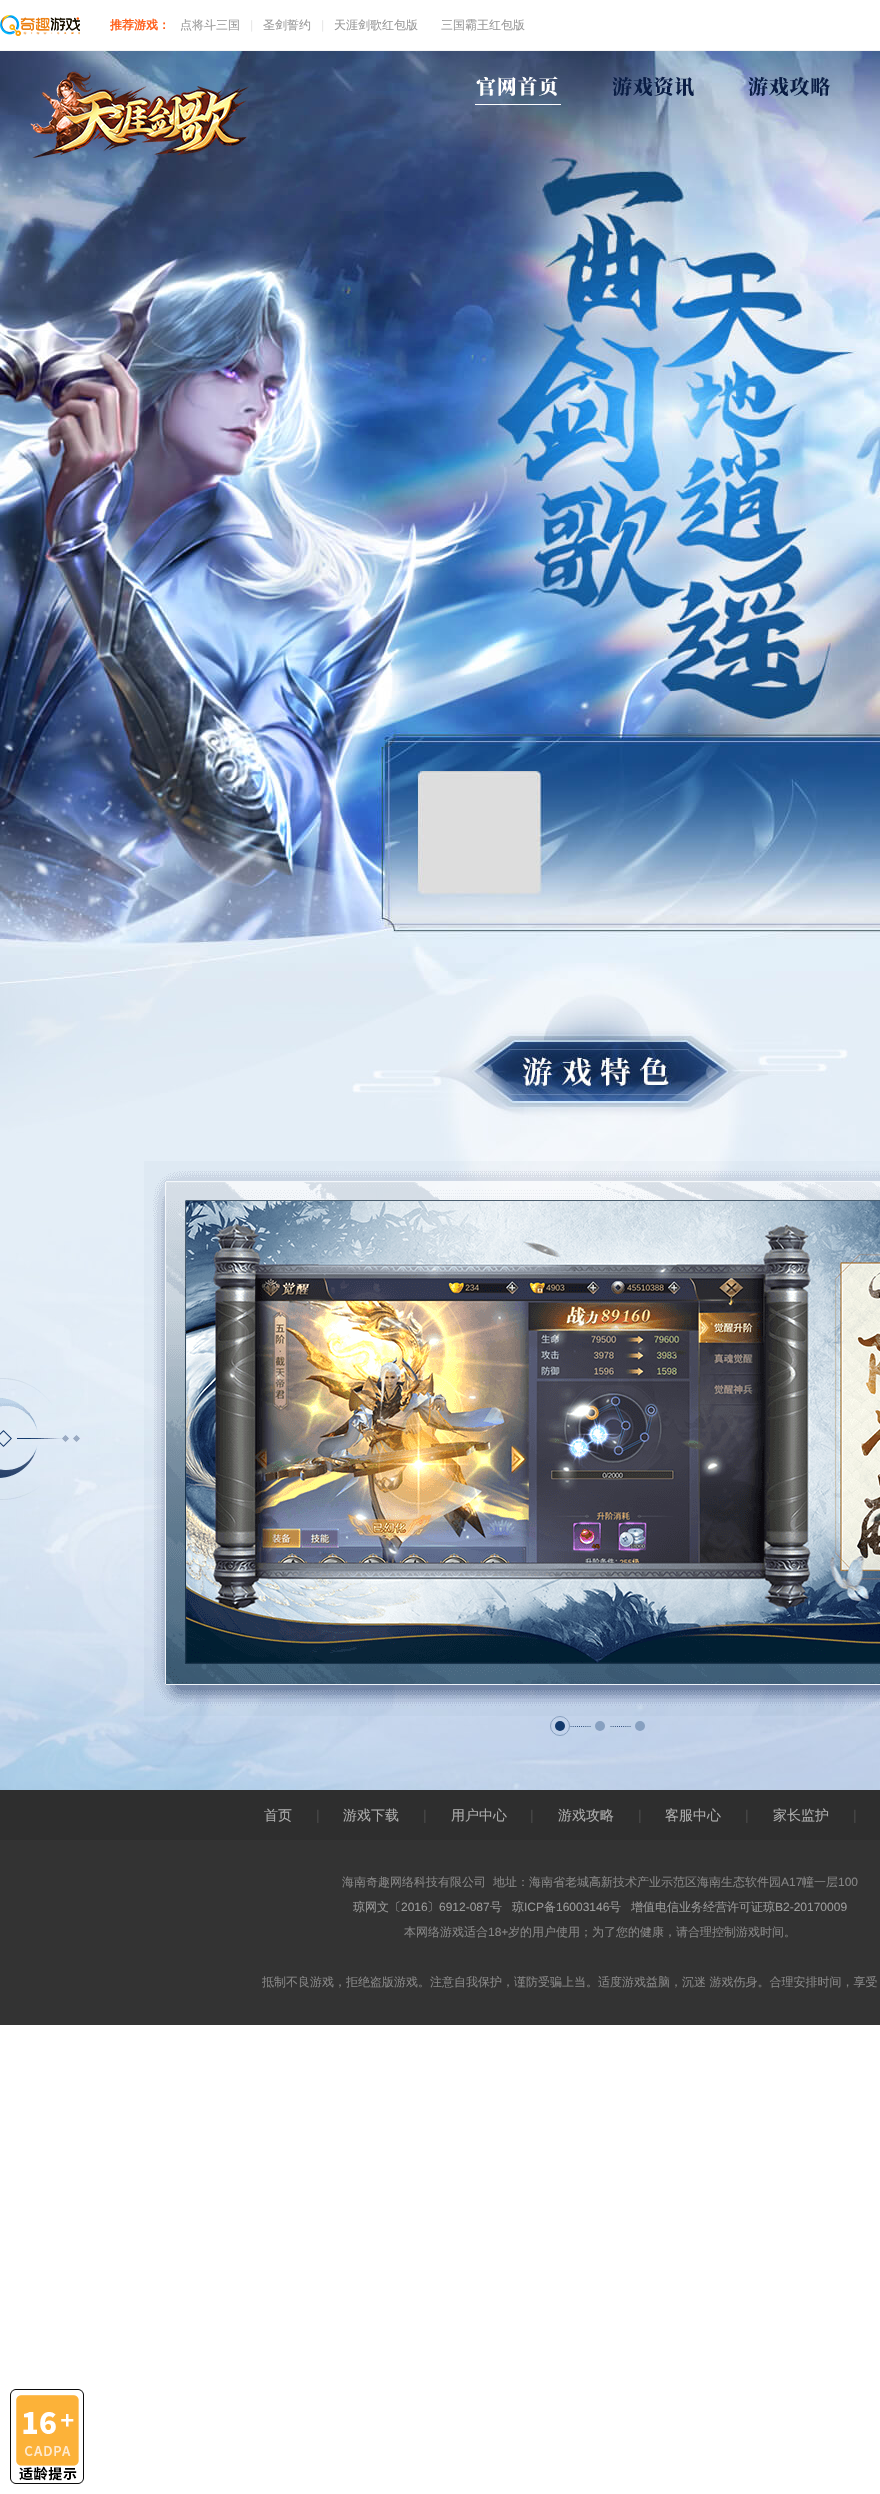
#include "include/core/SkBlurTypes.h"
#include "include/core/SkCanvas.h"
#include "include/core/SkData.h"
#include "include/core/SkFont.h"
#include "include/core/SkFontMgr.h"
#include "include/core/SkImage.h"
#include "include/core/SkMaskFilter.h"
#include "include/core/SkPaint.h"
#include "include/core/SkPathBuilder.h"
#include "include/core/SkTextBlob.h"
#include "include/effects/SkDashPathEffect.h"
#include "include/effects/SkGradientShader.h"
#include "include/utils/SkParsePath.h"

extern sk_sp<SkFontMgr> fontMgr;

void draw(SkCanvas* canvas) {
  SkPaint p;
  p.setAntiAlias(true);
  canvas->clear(SK_ColorWHITE);
  p.setColor(SkColorSetRGB(245, 245, 245));
  canvas->drawRect(SkRect::MakeLTRB(0, 50, 880, 51), p);
  canvas->drawImageRect(SkImages::DeferredFromEncodedData(SkData::MakeFromFileName("images/1.png")), SkRect::MakeLTRB(0, 15, 80, 36), SkSamplingOptions());
  canvas->drawImageRect(SkImages::DeferredFromEncodedData(SkData::MakeFromFileName("images/2.png")), SkRect::MakeLTRB(0, 51, 880, 981), SkSamplingOptions());
  canvas->drawImageRect(SkImages::DeferredFromEncodedData(SkData::MakeFromFileName("images/3.png")), SkRect::MakeLTRB(0, 981, 880, 1790), SkSamplingOptions());
  canvas->drawImageRect(SkImages::DeferredFromEncodedData(SkData::MakeFromFileName("images/4.png")), SkRect::MakeLTRB(0, 1378, 80, 1500), SkSamplingOptions());
  canvas->drawImageRect(SkImages::DeferredFromEncodedData(SkData::MakeFromFileName("images/5.png")), SkRect::MakeLTRB(144, 1161, 880, 1716), SkSamplingOptions());
  p.setColor(SkColorSetRGB(18, 57, 108));
  canvas->drawCircle(560, 1726, 5, p);
  p.setStyle(SkPaint::kStroke_Style);
  p.setStrokeWidth(1);
  p.setColor(SkColorSetRGB(135, 159, 191));
  canvas->drawCircle(560, 1726, 9.5f, p);
  p.setStyle(SkPaint::kFill_Style);
  p.setColor(SkColorSetRGB(135, 160, 192));
  canvas->drawCircle(600, 1726, 5, p);
  canvas->drawImageRect(SkImages::DeferredFromEncodedData(SkData::MakeFromFileName("images/6.png")), SkRect::MakeLTRB(570, 1726, 591, 1727), SkSamplingOptions());
  canvas->drawCircle(640, 1726, 5, p);
  canvas->drawImageRect(SkImages::DeferredFromEncodedData(SkData::MakeFromFileName("images/7.png")), SkRect::MakeLTRB(610, 1726, 631, 1727), SkSamplingOptions());
  canvas->drawImageRect(SkImages::DeferredFromEncodedData(SkData::MakeFromFileName("images/8.png")), SkRect::MakeLTRB(30, 71, 250, 158), SkSamplingOptions());
  canvas->drawImageRect(SkImages::DeferredFromEncodedData(SkData::MakeFromFileName("images/9.png")), SkRect::MakeLTRB(476, 76, 558, 96), SkSamplingOptions());
  p.setColor(SK_ColorWHITE);
  canvas->drawRect(SkRect::MakeLTRB(475, 104, 561, 105), p);
  canvas->drawImageRect(SkImages::DeferredFromEncodedData(SkData::MakeFromFileName("images/10.png")), SkRect::MakeLTRB(612, 76, 694, 96), SkSamplingOptions());
  canvas->drawImageRect(SkImages::DeferredFromEncodedData(SkData::MakeFromFileName("images/11.png")), SkRect::MakeLTRB(748, 76, 830, 96), SkSamplingOptions());
  p.setColor(SkColorSetRGB(51, 51, 51));
  canvas->drawRect(SkRect::MakeLTRB(0, 1840, 880, 2025), p);
  p.setColor(SkColorSetRGB(46, 46, 46));
  canvas->drawRect(SkRect::MakeLTRB(0, 1790, 880, 1840), p);
  canvas->drawImageRect(SkImages::DeferredFromEncodedData(SkData::MakeFromFileName("images/12.png")), SkRect::MakeLTRB(10, 2389, 84, 2484), SkSamplingOptions());
  SkFont font1(fontMgr->matchFamilyStyle("WenQuanYi Zen Hei", SkFontStyle::Bold()), 12);
  font1.setSubpixel(true);
  p.setColor(SkColorSetRGB(255, 96, 27));
  canvas->drawString("推荐游戏：", 110, 29, font1, p);
  SkFont font2(fontMgr->matchFamilyStyle("WenQuanYi Zen Hei", SkFontStyle(500, SkFontStyle::kNormal_Width, SkFontStyle::kUpright_Slant)), 12);
  font2.setSubpixel(true);
  p.setColor(SkColorSetRGB(153, 153, 153));
  canvas->drawString("点将斗三国", 180, 29, font2, p);
  SkFont font3(fontMgr->matchFamilyStyle("Liberation Sans", SkFontStyle::Normal()), 12);
  font3.setSubpixel(true);
  p.setColor(SkColorSetRGB(232, 232, 232));
  canvas->drawString("|", 250, 29, font3, p);
  p.setColor(SkColorSetRGB(153, 153, 153));
  canvas->drawString("圣剑誓约", 263, 29, font2, p);
  p.setColor(SkColorSetRGB(232, 232, 232));
  canvas->drawString("|", 321, 29, font3, p);
  p.setColor(SkColorSetRGB(153, 153, 153));
  canvas->drawString("天涯剑歌红包版", 334, 29, font2, p);
  canvas->drawString("三国霸王红包版", 441, 29, font2, p);
  SkFont font4(fontMgr->matchFamilyStyle("WenQuanYi Zen Hei", SkFontStyle(500, SkFontStyle::kNormal_Width, SkFontStyle::kUpright_Slant)), 14);
  font4.setSubpixel(true);
  p.setColor(SkColorSetRGB(172, 172, 172));
  canvas->drawString("首页", 264, 1820, font4, p);
  SkFont font5(fontMgr->matchFamilyStyle("Liberation Sans", SkFontStyle::Normal()), 14);
  font5.setSubpixel(true);
  p.setColor(SkColorSetRGB(72, 72, 72));
  canvas->drawString("|", 316, 1820, font5, p);
  p.setColor(SkColorSetRGB(172, 172, 172));
  canvas->drawString("游戏下载", 343, 1820, font4, p);
  p.setColor(SkColorSetRGB(72, 72, 72));
  canvas->drawString("|", 423, 1820, font5, p);
  p.setColor(SkColorSetRGB(172, 172, 172));
  canvas->drawString("用户中心", 451, 1820, font4, p);
  p.setColor(SkColorSetRGB(72, 72, 72));
  canvas->drawString("|", 530, 1820, font5, p);
  p.setColor(SkColorSetRGB(172, 172, 172));
  canvas->drawString("游戏攻略", 558, 1820, font4, p);
  p.setColor(SkColorSetRGB(72, 72, 72));
  canvas->drawString("|", 638, 1820, font5, p);
  p.setColor(SkColorSetRGB(172, 172, 172));
  canvas->drawString("客服中心", 665, 1820, font4, p);
  p.setColor(SkColorSetRGB(72, 72, 72));
  canvas->drawString("|", 745, 1820, font5, p);
  p.setColor(SkColorSetRGB(172, 172, 172));
  canvas->drawString("家长监护", 773, 1820, font4, p);
  p.setColor(SkColorSetRGB(72, 72, 72));
  canvas->drawString("|", 853, 1820, font5, p);
  p.setColor(SkColorSetRGB(133, 133, 133));
  canvas->drawString("海南奇趣网络科技有限公司", 342, 1886, font2, p);
  canvas->drawString("地址：海南省老城高新技术产业示范区海南生态软件园", 493, 1886, font2, p);
  canvas->drawString("A17", 781, 1886, font3, p);
  canvas->drawString("幢一层", 802, 1886, font2, p);
  canvas->drawString("100", 838, 1886, font3, p);
  p.setColor(SkColorSetRGB(153, 153, 153));
  canvas->drawString("琼网文〔", 353, 1911, font2, p);
  canvas->drawString("2016", 401, 1911, font3, p);
  canvas->drawString("〕", 427, 1911, font2, p);
  canvas->drawString("6912-087", 439, 1911, font3, p);
  canvas->drawString("号", 490, 1911, font2, p);
  canvas->drawString("琼", 512, 1911, font2, p);
  canvas->drawString("ICP", 524, 1911, font3, p);
  canvas->drawString("备", 544, 1911, font2, p);
  canvas->drawString("16003146", 556, 1911, font3, p);
  canvas->drawString("号", 609, 1911, font2, p);
  canvas->drawString("增值电信业务经营许可证琼", 631, 1911, font2, p);
  canvas->drawString("B2-20170009", 775, 1911, font3, p);
  p.setColor(SkColorSetRGB(133, 133, 133));
  canvas->drawString("本网络游戏适合", 404, 1936, font2, p);
  canvas->drawString("18+", 488, 1936, font3, p);
  canvas->drawString("岁的用户使用；为了您的健康，请合理控制游戏时间。", 508, 1936, font2, p);
  canvas->drawString("抵制不良游戏，拒绝盗版游戏。注意自我保护，谨防受骗上当。适度游戏益脑，沉迷 游戏伤身。合理安排时间，享受", 262, 1986, font2, p);
}
